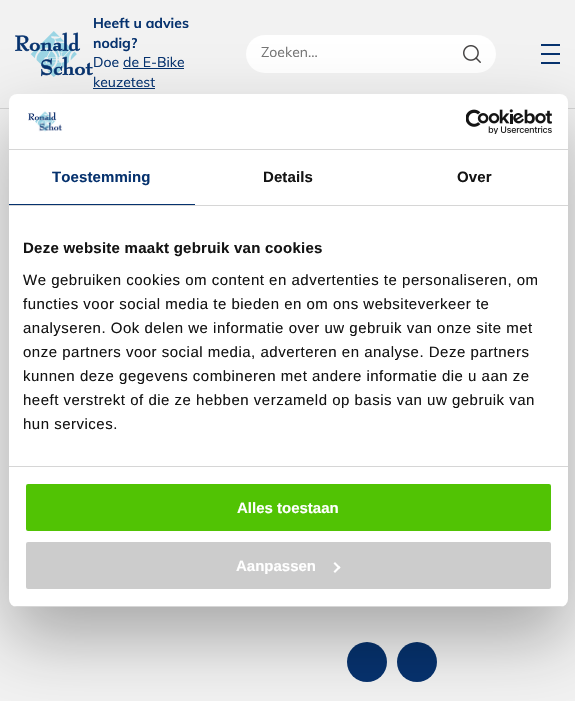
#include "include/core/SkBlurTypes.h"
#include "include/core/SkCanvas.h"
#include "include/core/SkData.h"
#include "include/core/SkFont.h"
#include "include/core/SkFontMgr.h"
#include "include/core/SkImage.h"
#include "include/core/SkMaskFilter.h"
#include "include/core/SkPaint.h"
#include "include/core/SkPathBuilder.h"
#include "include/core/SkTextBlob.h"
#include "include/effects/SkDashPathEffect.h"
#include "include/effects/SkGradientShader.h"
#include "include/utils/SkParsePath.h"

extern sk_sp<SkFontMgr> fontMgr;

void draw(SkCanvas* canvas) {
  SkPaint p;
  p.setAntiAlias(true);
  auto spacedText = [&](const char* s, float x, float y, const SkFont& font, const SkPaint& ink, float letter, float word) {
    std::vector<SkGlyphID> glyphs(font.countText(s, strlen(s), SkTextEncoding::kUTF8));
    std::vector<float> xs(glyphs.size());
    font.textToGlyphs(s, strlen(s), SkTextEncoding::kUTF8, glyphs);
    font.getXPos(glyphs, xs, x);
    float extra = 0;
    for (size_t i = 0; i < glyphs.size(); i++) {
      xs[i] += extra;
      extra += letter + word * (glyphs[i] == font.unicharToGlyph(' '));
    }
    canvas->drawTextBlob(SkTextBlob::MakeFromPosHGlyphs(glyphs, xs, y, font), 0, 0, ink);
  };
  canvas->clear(SkColorSetRGB(242, 242, 242));
  p.setColor(SkColorSetRGB(212, 212, 212));
  canvas->drawRect(SkRect::MakeLTRB(0, 108, 575, 109), p);
  canvas->drawImageRect(SkImages::DeferredFromEncodedData(SkData::MakeFromFileName("images/1.png")), SkRect::MakeLTRB(15, 31, 93, 77), SkSamplingOptions());
  p.setColor(SkColorSetRGB(5, 50, 110));
  canvas->drawRect(SkRect::MakeLTRB(123, 68, 184, 69), p);
  canvas->drawRect(SkRect::MakeLTRB(93, 88, 155, 89), p);
  p.setColor(SK_ColorWHITE);
  canvas->drawRoundRect(SkRect::MakeLTRB(246, 35, 496, 73), 19, 19, p);
  canvas->drawImageRect(SkImages::DeferredFromEncodedData(SkData::MakeFromFileName("images/2.png")), SkRect::MakeLTRB(463, 45, 481, 63), SkSamplingOptions());
  p.setColor(SkColorSetRGB(6, 50, 110));
  canvas->drawRect(SkRect::MakeLTRB(541, 44, 560, 46), p);
  canvas->drawRect(SkRect::MakeLTRB(541, 53, 560, 55), p);
  canvas->drawRect(SkRect::MakeLTRB(541, 62, 560, 64), p);
  canvas->drawCircle(367, 662, 20, p);
  canvas->drawCircle(417, 662, 20, p);
  p.setColor(SkColorSetARGB(77, 0, 0, 0));
  p.setMaskFilter(SkMaskFilter::MakeBlur(kNormal_SkBlurStyle, 34));
  canvas->drawRoundRect(SkRect::MakeLTRB(9, 126, 568, 639), 8, 8, p);
  p.setMaskFilter(nullptr);
  p.setColor(SK_ColorWHITE);
  canvas->drawRoundRect(SkRect::MakeLTRB(9, 94, 568, 607), 8, 8, p);
  p.setColor(SkColorSetRGB(214, 214, 214));
  canvas->drawRect(SkRect::MakeLTRB(9, 149, 568, 150), p);
  canvas->drawImageRect(SkImages::DeferredFromEncodedData(SkData::MakeFromFileName("images/3.png")), SkRect::MakeLTRB(28, 111, 63, 132), SkSamplingOptions());
  canvas->drawImageRect(SkImages::DeferredFromEncodedData(SkData::MakeFromFileName("images/4.png")), SkRect::MakeLTRB(466, 109, 552, 134), SkSamplingOptions());
  canvas->drawRect(SkRect::MakeLTRB(9, 205, 568, 206), p);
  p.setColor(SkColorSetRGB(6, 50, 110));
  canvas->drawRect(SkRect::MakeLTRB(9, 204, 195, 205), p);
  p.setColor(SkColorSetRGB(214, 214, 214));
  canvas->drawRect(SkRect::MakeLTRB(9, 466, 568, 467), p);
  canvas->save();
  canvas->clipPath(SkPathBuilder().moveTo(17, 94).lineTo(560, 94).cubicTo(564.5f, 94, 568, 97.5f, 568, 102).lineTo(568, 599).cubicTo(568, 603.5f, 564.5f, 607, 560, 607).lineTo(17, 607).cubicTo(12.5f, 607, 9, 603.5f, 9, 599).lineTo(9, 102).cubicTo(9, 97.5f, 12.5f, 94, 17, 94).close().detach(), true);
  canvas->drawRect(SkRect::MakeLTRB(9, 606, 568, 607), p);
  canvas->restore();
  p.setColor(SkColorSetRGB(81, 195, 4));
  canvas->drawRoundRect(SkRect::MakeLTRB(25, 483, 552, 532), 3, 3, p);
  p.setStyle(SkPaint::kStroke_Style);
  p.setStrokeWidth(2);
  p.setColor(SK_ColorWHITE);
  canvas->drawRoundRect(SkRect::MakeLTRB(25, 483, 552, 532), 3, 3, p);
  p.setStyle(SkPaint::kFill_Style);
  p.setColor(SkColorSetRGB(204, 204, 204));
  canvas->drawRoundRect(SkRect::MakeLTRB(25, 541, 552, 590), 3, 3, p);
  p.setStyle(SkPaint::kStroke_Style);
  p.setColor(SK_ColorWHITE);
  canvas->drawRoundRect(SkRect::MakeLTRB(25, 541, 552, 590), 3, 3, p);
  p.setStyle(SkPaint::kFill_Style);
  canvas->drawPath(SkPathBuilder().moveTo(335, 562).lineTo(340.5f, 567.5f).lineTo(339, 569).lineTo(333.5f, 563.5f).close().detach(), p);
  canvas->drawPath(SkPathBuilder().moveTo(339, 566).lineTo(340.5f, 567.5f).lineTo(335, 573).lineTo(333.5f, 571.5f).close().detach(), p);
  SkFont font1(fontMgr->matchFamilyStyle("Muli", SkFontStyle::Bold()), 14);
  font1.setSubpixel(true);
  p.setColor(SkColorSetRGB(6, 50, 110));
  canvas->drawString("Heeft u advies", 93, 28, font1, p);
  canvas->drawString("nodig?", 93, 48, font1, p);
  SkFont font2(fontMgr->matchFamilyStyle("Muli", SkFontStyle::Normal()), 14);
  font2.setSubpixel(true);
  canvas->drawString("Doe", 93, 67, font2, p);
  canvas->drawString("de E-Bike", 123, 67, font2, p);
  canvas->drawString("keuzetest", 93, 87, font2, p);
  p.setColor(SkColorSetRGB(117, 117, 117));
  canvas->drawString("Zoeken...", 261, 57, font2, p);
  SkFont font3(fontMgr->matchFamilyStyle("Liberation Sans", SkFontStyle::Bold()), 15);
  font3.setSubpixel(true);
  p.setColor(SkColorSetRGB(6, 50, 110));
  spacedText("Toestemming", 52, 182, font3, p, 0.1f, 0);
  p.setColor(SkColorSetRGB(20, 20, 20));
  spacedText("Details", 263, 182, font3, p, 0.1f, 0);
  spacedText("Over", 457, 182, font3, p, 0.1f, 0);
  spacedText("Deze website maakt gebruik van cookies", 23, 253, font3, p, 0.25f, 0);
  SkFont font4(fontMgr->matchFamilyStyle("Liberation Sans", SkFontStyle::Normal()), 15);
  font4.setSubpixel(true);
  spacedText("We gebruiken cookies om content en advertenties te personaliseren, om", 23, 285, font4, p, 0.5f, 0);
  spacedText("functies voor social media te bieden en om ons websiteverkeer te", 23, 309, font4, p, 0.5f, 0);
  spacedText("analyseren. Ook delen we informatie over uw gebruik van onze site met", 23, 333, font4, p, 0.5f, 0);
  spacedText("onze partners voor social media, adverteren en analyse. Deze partners", 23, 357, font4, p, 0.5f, 0);
  spacedText("kunnen deze gegevens combineren met andere informatie die u aan ze", 23, 381, font4, p, 0.5f, 0);
  spacedText("heeft verstrekt of die ze hebben verzameld op basis van uw gebruik van", 23, 405, font4, p, 0.5f, 0);
  spacedText("hun services.", 23, 429, font4, p, 0.5f, 0);
  p.setColor(SK_ColorWHITE);
  canvas->drawString("Alles toestaan", 237, 513, font3, p);
  canvas->drawString("Aanpassen", 236, 571, font3, p);
}
